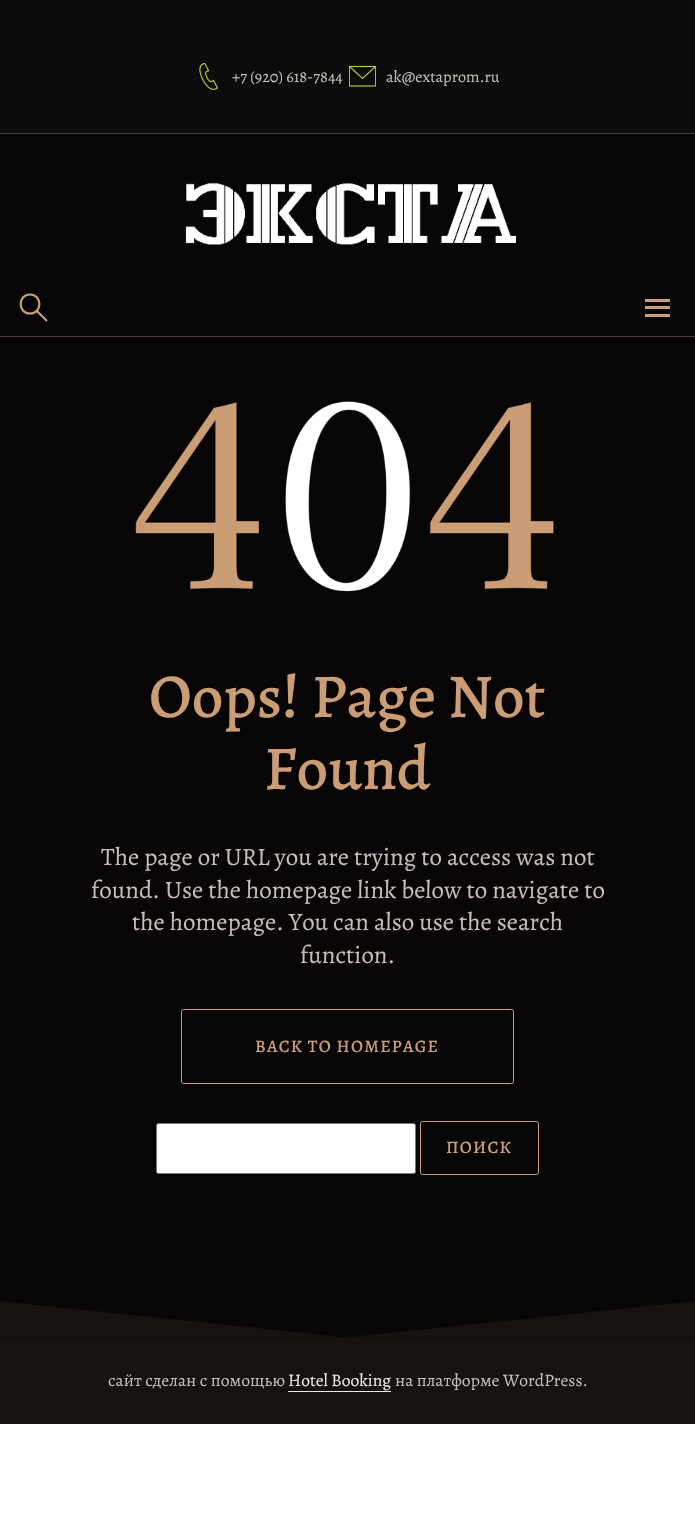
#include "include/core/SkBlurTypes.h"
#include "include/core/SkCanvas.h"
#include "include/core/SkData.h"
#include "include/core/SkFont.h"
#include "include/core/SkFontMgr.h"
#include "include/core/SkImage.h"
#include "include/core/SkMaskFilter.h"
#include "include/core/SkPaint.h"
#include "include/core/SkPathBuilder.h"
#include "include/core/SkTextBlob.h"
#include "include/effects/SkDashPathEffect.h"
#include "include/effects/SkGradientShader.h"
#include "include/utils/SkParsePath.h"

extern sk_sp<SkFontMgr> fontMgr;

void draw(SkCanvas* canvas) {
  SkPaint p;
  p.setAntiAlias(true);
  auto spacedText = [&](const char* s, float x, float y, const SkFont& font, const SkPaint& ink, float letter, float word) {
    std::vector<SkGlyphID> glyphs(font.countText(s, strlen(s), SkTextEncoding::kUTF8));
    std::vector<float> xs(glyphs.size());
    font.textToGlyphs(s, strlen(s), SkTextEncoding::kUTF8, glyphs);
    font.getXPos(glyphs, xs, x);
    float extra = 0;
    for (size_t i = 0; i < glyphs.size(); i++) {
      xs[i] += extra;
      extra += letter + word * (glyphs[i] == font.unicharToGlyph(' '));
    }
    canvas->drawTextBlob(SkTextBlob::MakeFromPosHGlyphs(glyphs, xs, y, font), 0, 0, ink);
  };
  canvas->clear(SK_ColorWHITE);
  p.setColor(SkColorSetRGB(12, 12, 12));
  canvas->drawRect(SkRect::MakeLTRB(0, 0, 695, 133), p);
  p.setColor(SkColorSetRGB(67, 62, 55));
  canvas->drawRect(SkRect::MakeLTRB(0, 133, 695, 134), p);
  canvas->drawImageRect(SkImages::DeferredFromEncodedData(SkData::MakeFromFileName("images/1.png")), SkRect::MakeLTRB(199, 63, 219, 90), SkSamplingOptions());
  canvas->drawImageRect(SkImages::DeferredFromEncodedData(SkData::MakeFromFileName("images/2.png")), SkRect::MakeLTRB(349, 65, 376, 87), SkSamplingOptions());
  p.setColor(SkColorSetRGB(7, 5, 6));
  canvas->drawRect(SkRect::MakeLTRB(0, 134, 695, 1338), p);
  p.setColor(SkColorSetRGB(67, 62, 55));
  canvas->drawRect(SkRect::MakeLTRB(0, 336, 695, 337), p);
  canvas->drawImageRect(SkImages::DeferredFromEncodedData(SkData::MakeFromFileName("images/3.png")), SkRect::MakeLTRB(185, 182, 516, 245), SkSamplingOptions());
  p.setStyle(SkPaint::kStroke_Style);
  p.setStrokeWidth(2.2f);
  p.setColor(SkColorSetRGB(202, 157, 117));
  canvas->drawPath(SkPathBuilder().moveTo(30, 313.5f).cubicTo(42.5f, 313.5f, 42.5f, 294.5f, 30, 294.5f).cubicTo(17.5f, 294.5f, 17.5f, 313.5f, 30, 313.5f).close().moveTo(47, 321).lineTo(36.5f, 310.5f).detach(), p);
  p.setStyle(SkPaint::kFill_Style);
  canvas->drawRect(SkRect::MakeLTRB(645, 299, 670, 302), p);
  canvas->drawRect(SkRect::MakeLTRB(645, 306, 670, 309), p);
  canvas->drawRect(SkRect::MakeLTRB(645, 314, 670, 317), p);
  canvas->drawImageRect(SkImages::DeferredFromEncodedData(SkData::MakeFromFileName("images/4.png")), SkRect::MakeLTRB(135, 401, 554, 592), SkSamplingOptions());
  p.setStyle(SkPaint::kStroke_Style);
  p.setStrokeWidth(1);
  canvas->drawRoundRect(SkRect::MakeLTRB(181.5f, 1009.5f, 513.5f, 1083.5f), 2, 2, p);
  p.setStyle(SkPaint::kFill_Style);
  p.setColor(SK_ColorWHITE);
  canvas->drawRoundRect(SkRect::MakeLTRB(156.5f, 1123.5f, 415.5f, 1173.5f), 2, 2, p);
  p.setStyle(SkPaint::kStroke_Style);
  p.setColor(SkColorSetRGB(118, 118, 118));
  canvas->drawRoundRect(SkRect::MakeLTRB(156.5f, 1123.5f, 415.5f, 1173.5f), 2, 2, p);
  p.setColor(SkColorSetRGB(202, 157, 117));
  canvas->drawRoundRect(SkRect::MakeLTRB(420.5f, 1121.5f, 538.5f, 1174.5f), 2, 2, p);
  p.setStyle(SkPaint::kFill_Style);
  p.setColor(SkColorSetRGB(21, 18, 15));
  canvas->drawRect(SkRect::MakeLTRB(0, 1338, 695, 1424), p);
  canvas->drawImageRect(SkImages::DeferredFromEncodedData(SkData::MakeFromFileName("images/5.png")), SkRect::MakeLTRB(0, 1301, 695, 1338), SkSamplingOptions());
  p.setColor(SkColorSetRGB(231, 231, 231));
  canvas->drawRect(SkRect::MakeLTRB(288, 1391, 391, 1392), p);
  SkFont font1(fontMgr->matchFamilyStyle("Alegreya", SkFontStyle::Normal()), 16.25f);
  font1.setSubpixel(true);
  p.setColor(SkColorSetRGB(195, 190, 182));
  canvas->drawString("+7 (920) 618-7844", 232, 82, font1, p);
  canvas->drawString("ak@extaprom.ru", 386, 82, font1, p);
  SkFont font2(fontMgr->matchFamilyStyle("Alegreya", SkFontStyle(500, SkFontStyle::kNormal_Width, SkFontStyle::kUpright_Slant)), 62.5f);
  font2.setSubpixel(true);
  p.setColor(SkColorSetRGB(202, 157, 117));
  canvas->drawString("Oops! Page Not", 149, 717, font2, p);
  canvas->drawString("Found", 264, 789, font2, p);
  SkFont font3(fontMgr->matchFamilyStyle("Alegreya", SkFontStyle::Normal()), 25);
  font3.setSubpixel(true);
  p.setColor(SkColorSetRGB(195, 190, 182));
  canvas->drawString("The page or URL you are trying to access was not", 101, 865, font3, p);
  canvas->drawString("found. Use the homepage link below to navigate to", 91, 898, font3, p);
  canvas->drawString("the homepage. You can also use the search", 132, 930, font3, p);
  canvas->drawString("function.", 300, 963, font3, p);
  SkFont font4(fontMgr->matchFamilyStyle("Alegreya", SkFontStyle(500, SkFontStyle::kNormal_Width, SkFontStyle::kUpright_Slant)), 17.5f);
  font4.setSubpixel(true);
  p.setColor(SkColorSetRGB(202, 157, 117));
  spacedText("BACK TO HOMEPAGE", 255, 1052, font4, p, 1.25f, 0);
  spacedText("ПОИСК", 446, 1153, font4, p, 1.25f, 0);
  SkFont font5(fontMgr->matchFamilyStyle("Alegreya", SkFontStyle::Normal()), 17.5f);
  font5.setSubpixel(true);
  p.setColor(SkColorSetRGB(195, 190, 182));
  canvas->drawString("сайт сделан с помощью", 108, 1386, font5, p);
  p.setColor(SkColorSetRGB(231, 231, 231));
  canvas->drawString("Hotel Booking", 288, 1386, font5, p);
  p.setColor(SkColorSetRGB(195, 190, 182));
  canvas->drawString("на платформе WordPress.", 395, 1386, font5, p);
}
